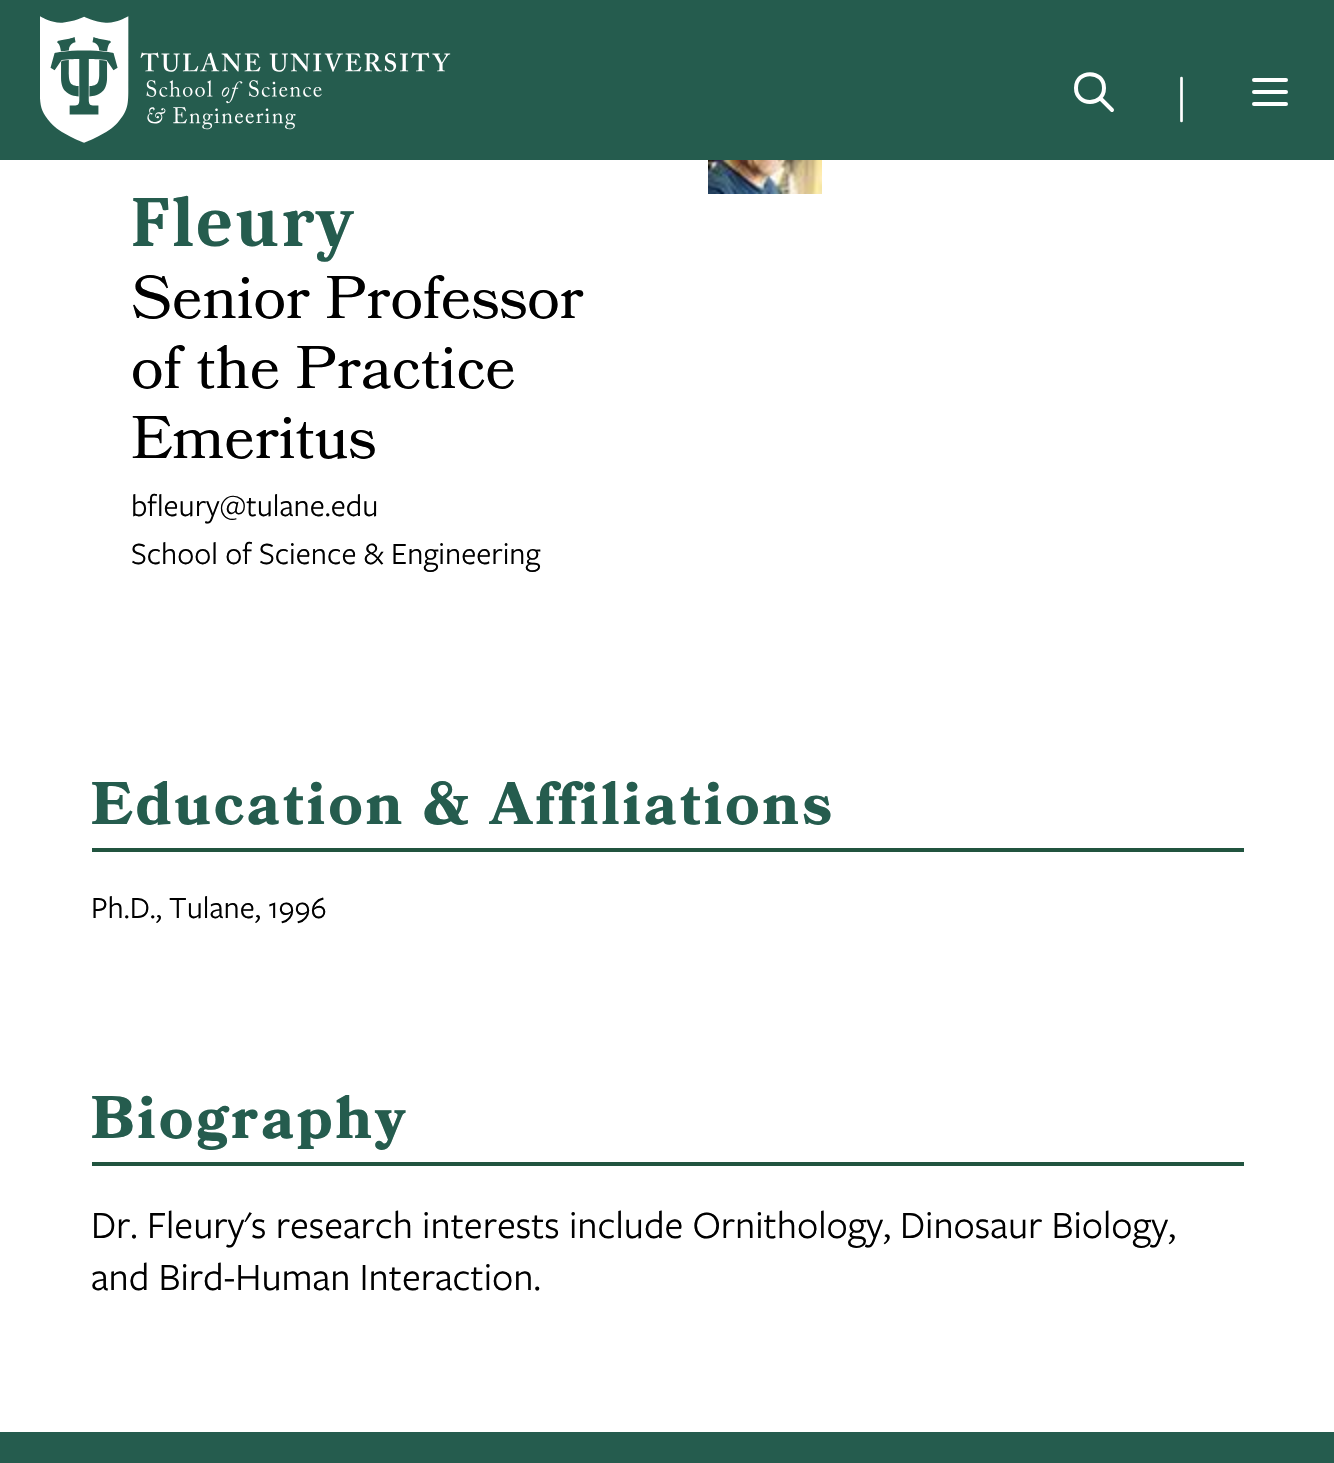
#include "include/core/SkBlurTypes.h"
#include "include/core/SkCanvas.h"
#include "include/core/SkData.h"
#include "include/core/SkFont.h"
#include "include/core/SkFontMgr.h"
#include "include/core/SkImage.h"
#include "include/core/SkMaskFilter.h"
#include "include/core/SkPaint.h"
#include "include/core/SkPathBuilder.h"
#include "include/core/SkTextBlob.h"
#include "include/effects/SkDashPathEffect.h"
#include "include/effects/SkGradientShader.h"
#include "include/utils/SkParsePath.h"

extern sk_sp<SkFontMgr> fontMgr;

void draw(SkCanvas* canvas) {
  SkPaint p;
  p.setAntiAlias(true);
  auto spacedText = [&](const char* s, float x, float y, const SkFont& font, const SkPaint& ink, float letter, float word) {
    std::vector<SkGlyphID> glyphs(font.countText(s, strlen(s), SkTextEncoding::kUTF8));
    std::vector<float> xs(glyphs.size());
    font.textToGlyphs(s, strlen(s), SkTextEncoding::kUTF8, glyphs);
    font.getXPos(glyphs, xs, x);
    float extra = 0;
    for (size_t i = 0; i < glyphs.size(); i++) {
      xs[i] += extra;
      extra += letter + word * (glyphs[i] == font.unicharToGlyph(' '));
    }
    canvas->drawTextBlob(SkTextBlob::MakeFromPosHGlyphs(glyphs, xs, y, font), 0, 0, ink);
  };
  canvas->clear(SK_ColorWHITE);
  p.setColor(SkColorSetRGB(37, 92, 78));
  canvas->drawRect(SkRect::MakeLTRB(0, 0, 1334, 160), p);
  canvas->drawImageRect(SkImages::DeferredFromEncodedData(SkData::MakeFromFileName("images/1.png")), SkRect::MakeLTRB(40, 16, 451, 143), SkSamplingOptions());
  p.setStyle(SkPaint::kStroke_Style);
  p.setStrokeWidth(4);
  p.setStrokeCap(SkPaint::kRound_Cap);
  p.setStrokeJoin(SkPaint::kRound_Join);
  p.setColor(SK_ColorWHITE);
  canvas->drawPath(SkPathBuilder().moveTo(1112, 110).lineTo(1100, 98).moveTo(1104, 88).cubicTo(1104, 106.5f, 1076, 106.5f, 1076, 88).cubicTo(1076, 69.5f, 1104, 69.5f, 1104, 88).close().detach(), p);
  p.setStrokeWidth(2.7f);
  canvas->drawPath(SkPathBuilder().moveTo(1181.5f, 121).lineTo(1181.5f, 78).detach(), p);
  p.setStrokeWidth(4);
  canvas->drawPath(SkPathBuilder().moveTo(1254, 80).lineTo(1286, 80).moveTo(1254, 92).lineTo(1286, 92).moveTo(1254, 104).lineTo(1286, 104).detach(), p);
  canvas->drawImageRect(SkImages::DeferredFromEncodedData(SkData::MakeFromFileName("images/2.png")), SkRect::MakeLTRB(708, 160, 822, 194), SkSamplingOptions());
  p.setStyle(SkPaint::kFill_Style);
  p.setColor(SkColorSetRGB(33, 84, 63));
  canvas->drawRect(SkRect::MakeLTRB(92, 848, 1244, 852), p);
  canvas->drawRect(SkRect::MakeLTRB(92, 1162, 1244, 1166), p);
  p.setColor(SkColorSetRGB(37, 92, 78));
  canvas->drawRect(SkRect::MakeLTRB(0, 1432, 1334, 1463), p);
  SkFont font1(fontMgr->matchFamilyStyle("Caladea", SkFontStyle::Bold()), 72);
  font1.setSubpixel(true);
  spacedText("Fleury", 131, 246, font1, p, 2.25f, 0);
  SkFont font2(fontMgr->matchFamilyStyle("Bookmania", SkFontStyle::Normal()), 60);
  font2.setSubpixel(true);
  p.setColor(SK_ColorBLACK);
  canvas->drawString("Senior Professor", 131, 318, font2, p);
  canvas->drawString("of the Practice", 131, 388, font2, p);
  canvas->drawString("Emeritus", 131, 458, font2, p);
  SkFont font3(fontMgr->matchFamilyStyle("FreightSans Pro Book", SkFontStyle::Normal()), 32);
  font3.setSubpixel(true);
  canvas->drawString("bfleury@tulane.edu", 131, 516, font3, p);
  canvas->drawString("School of Science & Engineering", 131, 564, font3, p);
  SkFont font4(fontMgr->matchFamilyStyle("Bookmania", SkFontStyle::Bold()), 60);
  font4.setSubpixel(true);
  p.setColor(SkColorSetRGB(37, 92, 78));
  spacedText("Education & Affiliations", 91, 824, font4, p, 3.1f, 0);
  p.setColor(SK_ColorBLACK);
  canvas->drawString("Ph.D., Tulane, 1996", 91, 918, font3, p);
  p.setColor(SkColorSetRGB(37, 92, 78));
  spacedText("Biography", 91, 1138, font4, p, 3.1f, 0);
  SkFont font5(fontMgr->matchFamilyStyle("FreightSans Pro Book", SkFontStyle::Normal()), 40);
  font5.setSubpixel(true);
  p.setColor(SK_ColorBLACK);
  canvas->drawString("Dr. Fleury's research interests include Ornithology, Dinosaur Biology,", 91, 1238, font5, p);
  canvas->drawString("and Bird-Human Interaction.", 91, 1290, font5, p);
}
